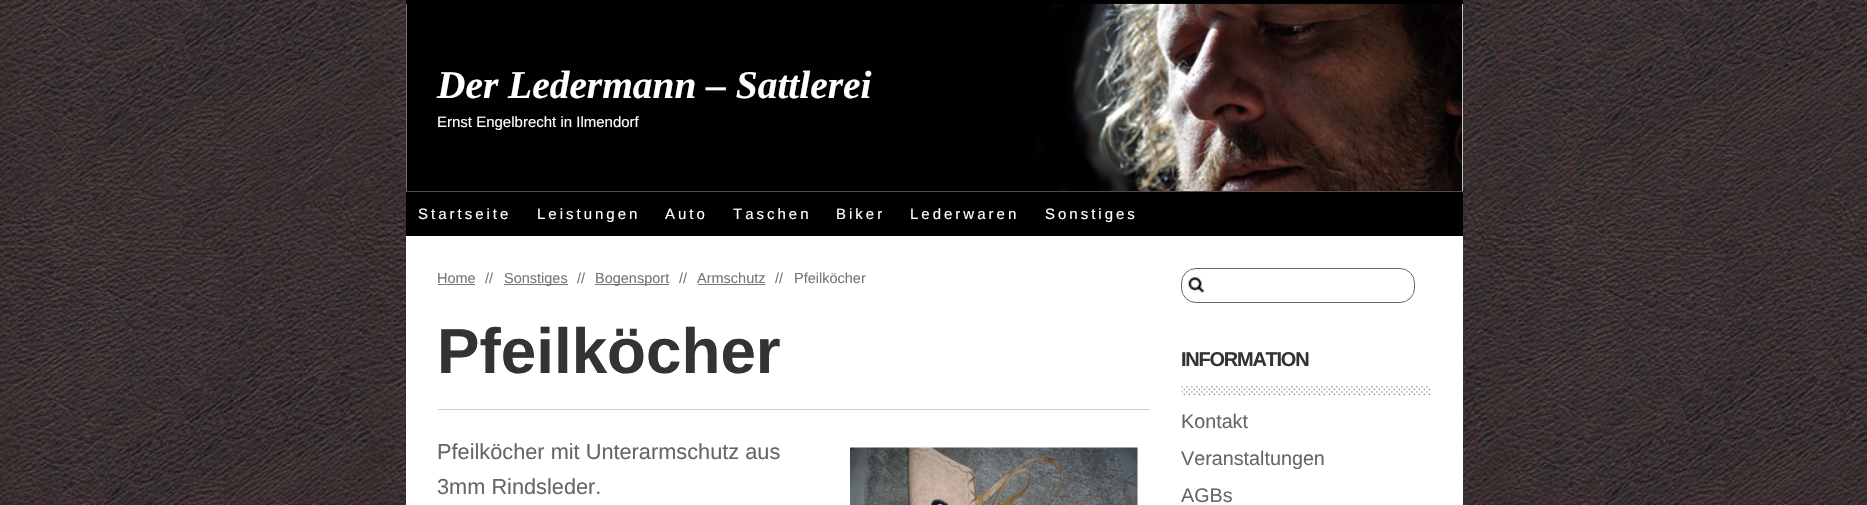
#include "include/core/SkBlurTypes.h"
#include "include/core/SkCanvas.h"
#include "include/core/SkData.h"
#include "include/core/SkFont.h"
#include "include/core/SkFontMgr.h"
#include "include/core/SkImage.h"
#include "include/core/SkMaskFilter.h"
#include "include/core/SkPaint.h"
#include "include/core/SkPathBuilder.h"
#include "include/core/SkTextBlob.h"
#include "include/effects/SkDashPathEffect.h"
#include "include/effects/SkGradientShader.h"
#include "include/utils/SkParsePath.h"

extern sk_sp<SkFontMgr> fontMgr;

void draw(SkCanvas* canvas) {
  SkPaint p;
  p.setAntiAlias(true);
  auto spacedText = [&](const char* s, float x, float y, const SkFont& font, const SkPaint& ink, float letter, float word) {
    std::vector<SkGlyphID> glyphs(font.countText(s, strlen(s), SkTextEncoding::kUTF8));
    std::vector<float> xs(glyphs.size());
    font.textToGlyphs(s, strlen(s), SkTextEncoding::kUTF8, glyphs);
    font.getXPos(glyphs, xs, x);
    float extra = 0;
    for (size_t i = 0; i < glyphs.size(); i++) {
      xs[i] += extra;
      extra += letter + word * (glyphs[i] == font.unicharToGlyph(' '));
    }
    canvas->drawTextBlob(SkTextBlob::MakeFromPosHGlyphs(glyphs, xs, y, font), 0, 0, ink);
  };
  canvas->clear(SK_ColorWHITE);
  canvas->drawImageRect(SkImages::DeferredFromEncodedData(SkData::MakeFromFileName("images/1.png")), SkRect::MakeLTRB(0, 0, 1867, 505), SkSamplingOptions());
  p.setColor(SK_ColorWHITE);
  canvas->drawRect(SkRect::MakeLTRB(406, 4, 1463, 505), p);
  p.setColor(SK_ColorBLACK);
  canvas->drawRect(SkRect::MakeLTRB(406, 0, 1463, 4), p);
  canvas->drawImageRect(SkImages::DeferredFromEncodedData(SkData::MakeFromFileName("images/2.png")), SkRect::MakeLTRB(406, 3, 1463, 191), SkSamplingOptions());
  canvas->drawRect(SkRect::MakeLTRB(406, 192, 1463, 236), p);
  p.setColor(SkColorSetRGB(84, 74, 74));
  canvas->drawRect(SkRect::MakeLTRB(406, 191, 1463, 192), p);
  p.setColor(SkColorSetRGB(119, 119, 119));
  canvas->drawRect(SkRect::MakeLTRB(438, 284, 475, 285), p);
  canvas->drawRect(SkRect::MakeLTRB(504, 284, 568, 285), p);
  canvas->drawRect(SkRect::MakeLTRB(595, 284, 669, 285), p);
  canvas->drawRect(SkRect::MakeLTRB(698, 284, 765, 285), p);
  p.setColor(SkColorSetRGB(204, 204, 204));
  canvas->drawRect(SkRect::MakeLTRB(438, 409, 1150, 410), p);
  canvas->drawImageRect(SkImages::DeferredFromEncodedData(SkData::MakeFromFileName("images/3.png")), SkRect::MakeLTRB(850, 447, 1138, 505), SkSamplingOptions());
  canvas->drawImageRect(SkImages::DeferredFromEncodedData(SkData::MakeFromFileName("images/4.png")), SkRect::MakeLTRB(1188, 277, 1205, 293), SkSamplingOptions());
  p.setStyle(SkPaint::kStroke_Style);
  p.setStrokeWidth(1);
  p.setColor(SkColorSetRGB(102, 102, 102));
  canvas->drawRoundRect(SkRect::MakeLTRB(1181.5f, 268.5f, 1414.5f, 302.5f), 14.5f, 14.5f, p);
  canvas->drawImageRect(SkImages::DeferredFromEncodedData(SkData::MakeFromFileName("images/5.png")), SkRect::MakeLTRB(1181, 386, 1431, 396), SkSamplingOptions());
  SkFont font1(fontMgr->matchFamilyStyle("Liberation Serif", SkFontStyle::BoldItalic()), 39.4f);
  font1.setSubpixel(true);
  p.setStyle(SkPaint::kFill_Style);
  p.setColor(SK_ColorWHITE);
  canvas->drawString("Der Ledermann – Sattlerei", 437, 98, font1, p);
  SkFont font2(fontMgr->matchFamilyStyle("Liberation Sans", SkFontStyle::Normal()), 15);
  font2.setSubpixel(true);
  canvas->drawString("Ernst Engelbrecht in Ilmendorf", 437, 127, font2, p);
  spacedText("Startseite", 418, 219, font2, p, 3, 0);
  spacedText("Leistungen", 537, 219, font2, p, 3, 0);
  spacedText("Auto", 665, 219, font2, p, 3, 0);
  spacedText("Taschen", 733, 219, font2, p, 3, 0);
  spacedText("Biker", 836, 219, font2, p, 3, 0);
  spacedText("Lederwaren", 910, 219, font2, p, 3, 0);
  spacedText("Sonstiges", 1045, 219, font2, p, 3, 0);
  SkFont font3(fontMgr->matchFamilyStyle("Liberation Sans", SkFontStyle::Normal()), 14.5f);
  font3.setSubpixel(true);
  p.setColor(SkColorSetRGB(119, 119, 119));
  canvas->drawString("Home", 437, 283, font3, p);
  canvas->drawString("//", 485, 283, font3, p);
  canvas->drawString("Sonstiges", 504, 283, font3, p);
  canvas->drawString("//", 577, 283, font3, p);
  canvas->drawString("Bogensport", 595, 283, font3, p);
  canvas->drawString("//", 679, 283, font3, p);
  canvas->drawString("Armschutz", 697, 283, font3, p);
  canvas->drawString("//", 775, 283, font3, p);
  canvas->drawString("Pfeilköcher", 794, 283, font3, p);
  SkFont font4(fontMgr->matchFamilyStyle("Liberation Sans", SkFontStyle::Bold()), 63.75f);
  font4.setSubpixel(true);
  p.setColor(SkColorSetRGB(51, 51, 51));
  canvas->drawString("Pfeilköcher", 437, 373, font4, p);
  SkFont font5(fontMgr->matchFamilyStyle("Liberation Sans", SkFontStyle::Normal()), 21.75f);
  font5.setSubpixel(true);
  p.setColor(SkColorSetRGB(102, 102, 102));
  canvas->drawString("Pfeilköcher mit Unterarmschutz aus", 437, 459, font5, p);
  canvas->drawString("3mm Rindsleder.", 437, 494, font5, p);
  SkFont font6(fontMgr->matchFamilyStyle("Liberation Sans", SkFontStyle::Bold()), 20);
  font6.setSubpixel(true);
  p.setColor(SkColorSetRGB(51, 51, 51));
  spacedText("INFORMATION", 1181, 366, font6, p, -1.25f, 0);
  SkFont font7(fontMgr->matchFamilyStyle("Liberation Sans", SkFontStyle::Normal()), 19.75f);
  font7.setSubpixel(true);
  p.setColor(SkColorSetRGB(102, 102, 102));
  canvas->drawString("Kontakt", 1181, 428, font7, p);
  canvas->drawString("Veranstaltungen", 1181, 465, font7, p);
  canvas->drawString("AGBs", 1181, 502, font7, p);
}
